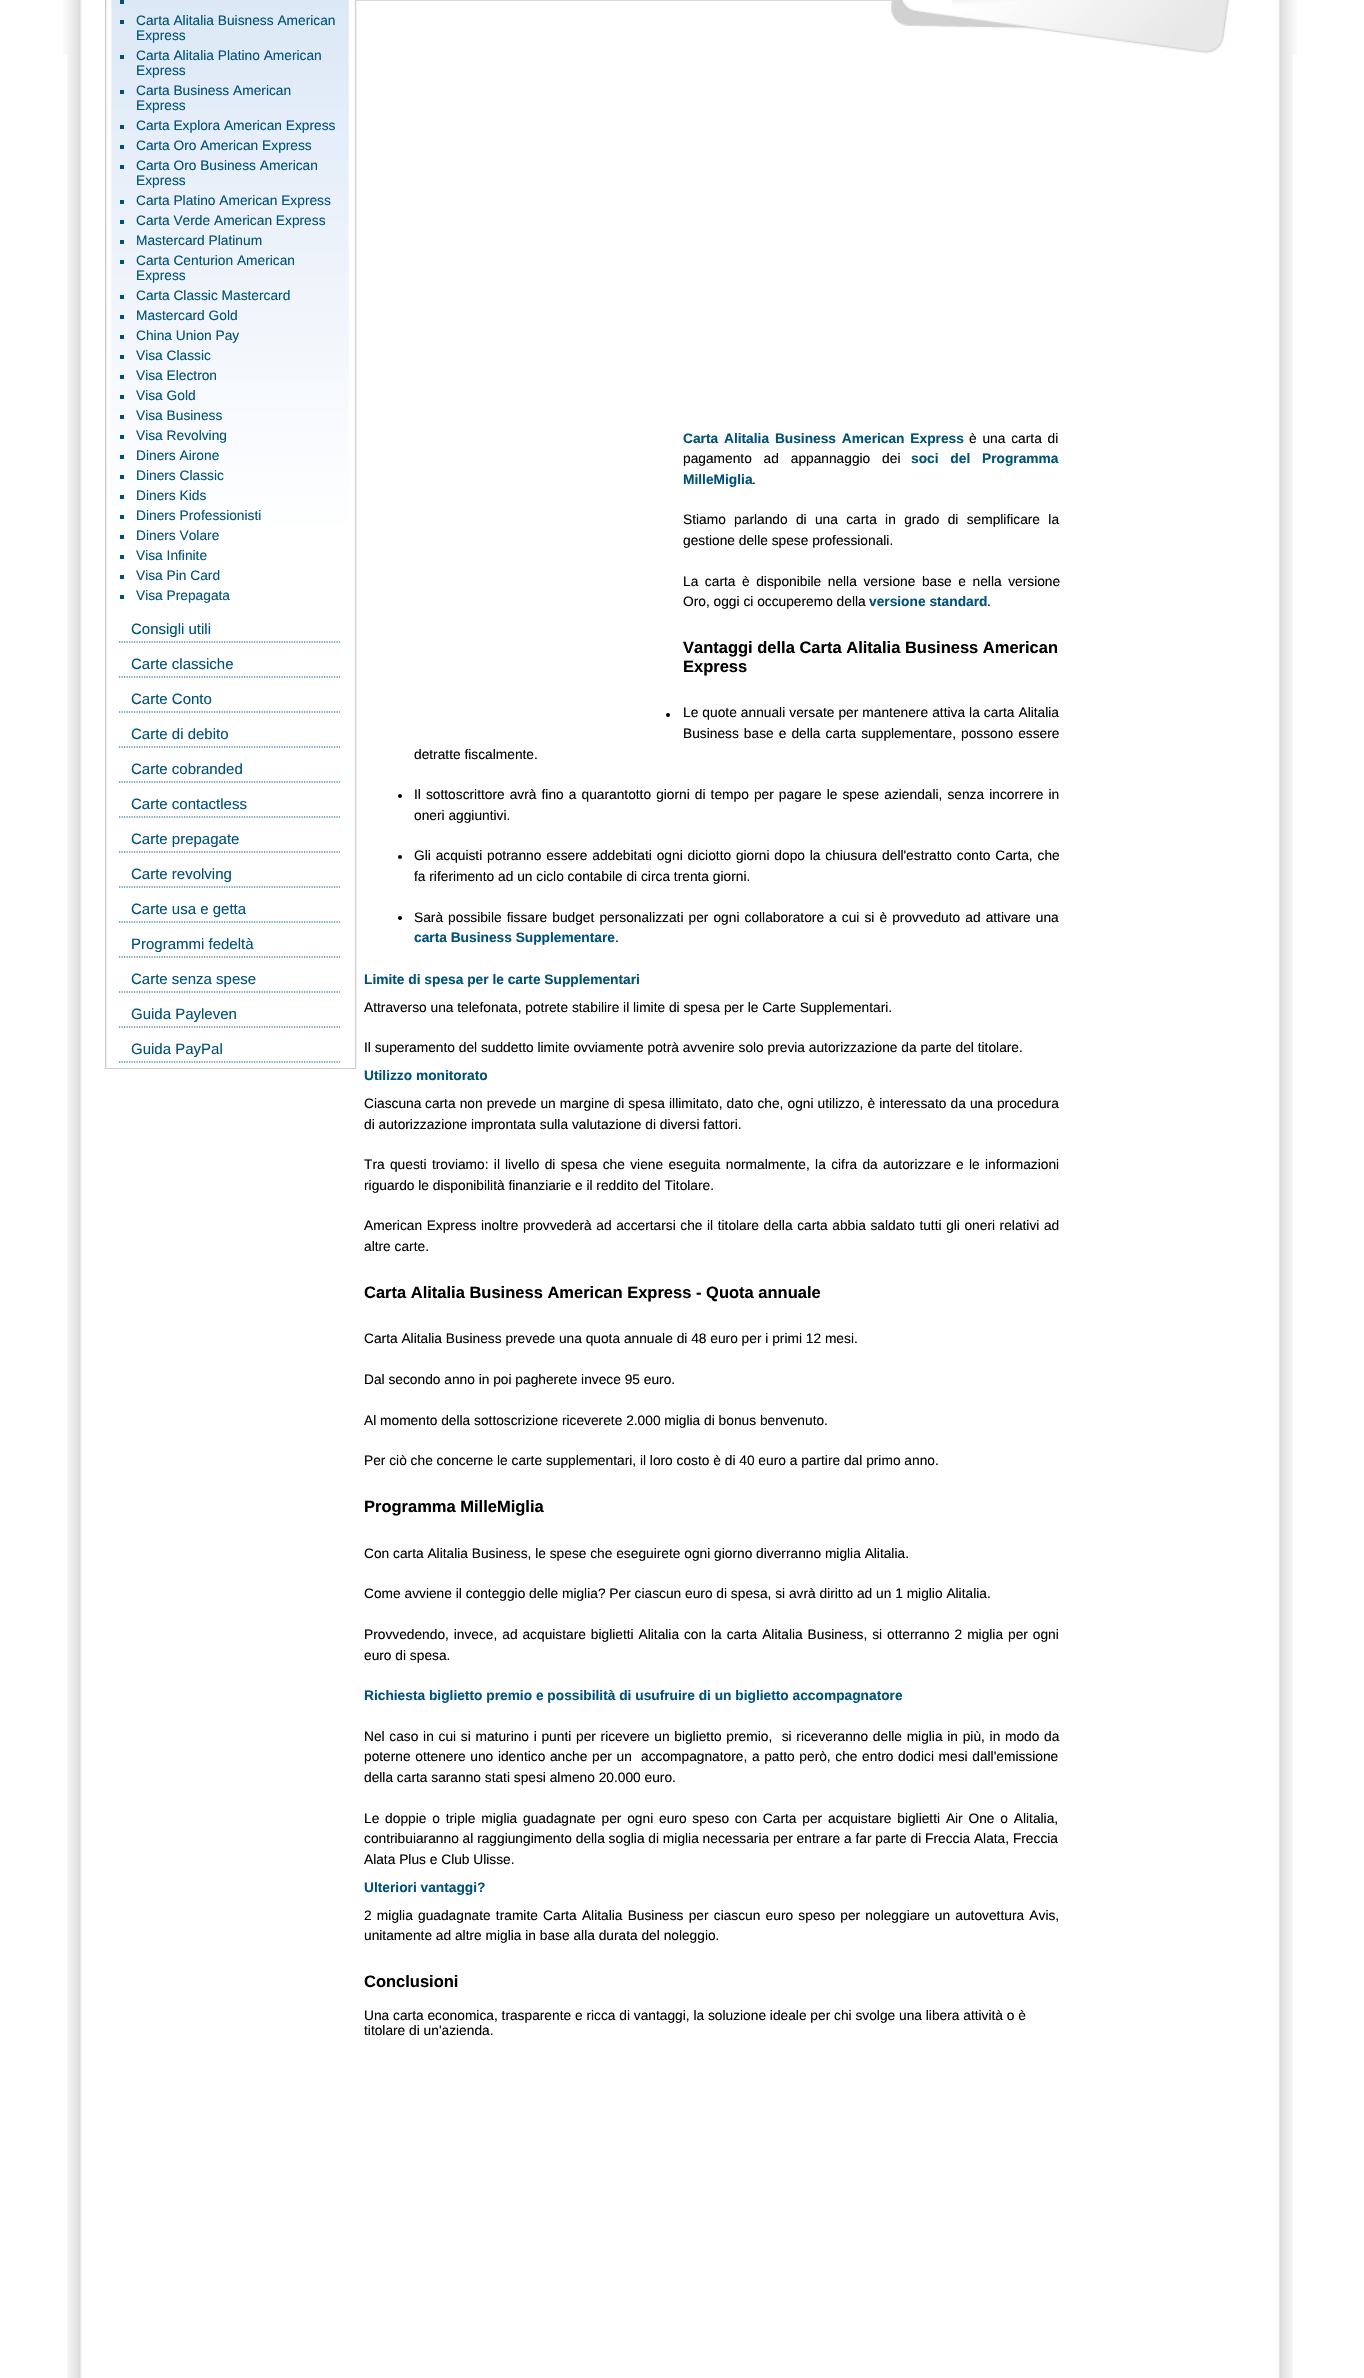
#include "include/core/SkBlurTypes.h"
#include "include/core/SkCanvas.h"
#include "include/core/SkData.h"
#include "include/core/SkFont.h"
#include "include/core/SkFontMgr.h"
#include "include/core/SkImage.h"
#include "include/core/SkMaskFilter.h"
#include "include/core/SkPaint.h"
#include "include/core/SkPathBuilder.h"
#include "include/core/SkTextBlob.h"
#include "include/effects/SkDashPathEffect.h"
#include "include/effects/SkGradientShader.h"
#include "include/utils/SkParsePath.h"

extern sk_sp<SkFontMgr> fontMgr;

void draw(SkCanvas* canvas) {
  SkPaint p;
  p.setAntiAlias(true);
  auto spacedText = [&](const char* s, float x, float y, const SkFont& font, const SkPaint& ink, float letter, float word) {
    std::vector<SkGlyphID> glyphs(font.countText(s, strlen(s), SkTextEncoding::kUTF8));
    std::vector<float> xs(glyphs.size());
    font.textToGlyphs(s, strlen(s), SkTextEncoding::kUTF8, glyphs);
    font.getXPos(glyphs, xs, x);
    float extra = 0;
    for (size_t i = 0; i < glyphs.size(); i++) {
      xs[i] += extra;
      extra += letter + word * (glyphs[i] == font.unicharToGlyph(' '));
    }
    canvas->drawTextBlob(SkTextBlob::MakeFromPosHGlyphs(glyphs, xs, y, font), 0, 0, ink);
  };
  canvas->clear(SK_ColorWHITE);
  canvas->drawImageRect(SkImages::DeferredFromEncodedData(SkData::MakeFromFileName("images/1.png")), SkRect::MakeLTRB(67, 54, 1293, 2378), SkSamplingOptions());
  canvas->drawImageRect(SkImages::DeferredFromEncodedData(SkData::MakeFromFileName("images/2.png")), SkRect::MakeLTRB(63, 0, 1297, 55), SkSamplingOptions());
  canvas->drawImageRect(SkImages::DeferredFromEncodedData(SkData::MakeFromFileName("images/3.png")), SkRect::MakeLTRB(105, 0, 357, 1069), SkSamplingOptions());
  p.setColor(SkColorSetRGB(204, 204, 204));
  canvas->drawRect(SkRect::MakeLTRB(105, 1068, 356, 1069), p);
  p.setColor(SkColorSetRGB(0, 81, 121));
  canvas->drawRect(SkRect::MakeLTRB(120, 0, 124, 4), p);
  canvas->drawRect(SkRect::MakeLTRB(120, 20, 124, 24), p);
  canvas->drawRect(SkRect::MakeLTRB(120, 55, 124, 59), p);
  canvas->drawRect(SkRect::MakeLTRB(120, 90, 124, 94), p);
  canvas->drawRect(SkRect::MakeLTRB(120, 125, 124, 129), p);
  canvas->drawRect(SkRect::MakeLTRB(120, 145, 124, 149), p);
  canvas->drawRect(SkRect::MakeLTRB(120, 165, 124, 169), p);
  canvas->drawRect(SkRect::MakeLTRB(120, 200, 124, 204), p);
  canvas->drawRect(SkRect::MakeLTRB(120, 220, 124, 224), p);
  canvas->drawRect(SkRect::MakeLTRB(120, 240, 124, 244), p);
  canvas->drawRect(SkRect::MakeLTRB(120, 260, 124, 264), p);
  canvas->drawRect(SkRect::MakeLTRB(120, 295, 124, 299), p);
  canvas->drawRect(SkRect::MakeLTRB(120, 315, 124, 319), p);
  canvas->drawRect(SkRect::MakeLTRB(120, 335, 124, 339), p);
  canvas->drawRect(SkRect::MakeLTRB(120, 355, 124, 359), p);
  canvas->drawRect(SkRect::MakeLTRB(120, 375, 124, 379), p);
  canvas->drawRect(SkRect::MakeLTRB(120, 395, 124, 399), p);
  canvas->drawRect(SkRect::MakeLTRB(120, 415, 124, 419), p);
  canvas->drawRect(SkRect::MakeLTRB(120, 435, 124, 439), p);
  canvas->drawRect(SkRect::MakeLTRB(120, 455, 124, 459), p);
  canvas->drawRect(SkRect::MakeLTRB(120, 475, 124, 479), p);
  canvas->drawRect(SkRect::MakeLTRB(120, 495, 124, 499), p);
  canvas->drawRect(SkRect::MakeLTRB(120, 515, 124, 519), p);
  canvas->drawRect(SkRect::MakeLTRB(120, 535, 124, 539), p);
  canvas->drawRect(SkRect::MakeLTRB(120, 555, 124, 559), p);
  canvas->drawRect(SkRect::MakeLTRB(120, 575, 124, 579), p);
  canvas->drawRect(SkRect::MakeLTRB(120, 595, 124, 599), p);
  p.setStyle(SkPaint::kStroke_Style);
  p.setStrokeWidth(1.2f);
  p.setPathEffect(SkDashPathEffect::Make({{1.25f, 1.25f}}, 0));
  canvas->drawPath(SkPathBuilder().moveTo(119, 642).lineTo(340, 642).detach(), p);
  p.setPathEffect(nullptr);
  p.setPathEffect(SkDashPathEffect::Make({{1.25f, 1.25f}}, 0));
  canvas->drawPath(SkPathBuilder().moveTo(119, 677).lineTo(340, 677).detach(), p);
  p.setPathEffect(nullptr);
  p.setPathEffect(SkDashPathEffect::Make({{1.25f, 1.25f}}, 0));
  canvas->drawPath(SkPathBuilder().moveTo(119, 712).lineTo(340, 712).detach(), p);
  p.setPathEffect(nullptr);
  p.setPathEffect(SkDashPathEffect::Make({{1.25f, 1.25f}}, 0));
  canvas->drawPath(SkPathBuilder().moveTo(119, 747).lineTo(340, 747).detach(), p);
  p.setPathEffect(nullptr);
  p.setPathEffect(SkDashPathEffect::Make({{1.25f, 1.25f}}, 0));
  canvas->drawPath(SkPathBuilder().moveTo(119, 782).lineTo(340, 782).detach(), p);
  p.setPathEffect(nullptr);
  p.setPathEffect(SkDashPathEffect::Make({{1.25f, 1.25f}}, 0));
  canvas->drawPath(SkPathBuilder().moveTo(119, 817).lineTo(340, 817).detach(), p);
  p.setPathEffect(nullptr);
  p.setPathEffect(SkDashPathEffect::Make({{1.25f, 1.25f}}, 0));
  canvas->drawPath(SkPathBuilder().moveTo(119, 852).lineTo(340, 852).detach(), p);
  p.setPathEffect(nullptr);
  p.setPathEffect(SkDashPathEffect::Make({{1.25f, 1.25f}}, 0));
  canvas->drawPath(SkPathBuilder().moveTo(119, 887).lineTo(340, 887).detach(), p);
  p.setPathEffect(nullptr);
  p.setPathEffect(SkDashPathEffect::Make({{1.25f, 1.25f}}, 0));
  canvas->drawPath(SkPathBuilder().moveTo(119, 922).lineTo(340, 922).detach(), p);
  p.setPathEffect(nullptr);
  p.setPathEffect(SkDashPathEffect::Make({{1.25f, 1.25f}}, 0));
  canvas->drawPath(SkPathBuilder().moveTo(119, 957).lineTo(340, 957).detach(), p);
  p.setPathEffect(nullptr);
  p.setPathEffect(SkDashPathEffect::Make({{1.25f, 1.25f}}, 0));
  canvas->drawPath(SkPathBuilder().moveTo(119, 992).lineTo(340, 992).detach(), p);
  p.setPathEffect(nullptr);
  p.setPathEffect(SkDashPathEffect::Make({{1.25f, 1.25f}}, 0));
  canvas->drawPath(SkPathBuilder().moveTo(119, 1027).lineTo(340, 1027).detach(), p);
  p.setPathEffect(nullptr);
  p.setPathEffect(SkDashPathEffect::Make({{1.25f, 1.25f}}, 0));
  canvas->drawPath(SkPathBuilder().moveTo(119, 1062).lineTo(340, 1062).detach(), p);
  p.setPathEffect(nullptr);
  canvas->drawImageRect(SkImages::DeferredFromEncodedData(SkData::MakeFromFileName("images/4.png")), SkRect::MakeLTRB(891, 0, 1237, 54), SkSamplingOptions());
  p.setStyle(SkPaint::kFill_Style);
  p.setColor(SkColorSetRGB(1, 1, 1));
  canvas->drawCircle(668, 715, 2, p);
  canvas->drawCircle(400, 796, 2, p);
  canvas->drawCircle(400, 857, 2, p);
  canvas->drawCircle(400, 918, 2, p);
  SkFont font1(fontMgr->matchFamilyStyle("Liberation Sans", SkFontStyle::Normal()), 13.75f);
  font1.setSubpixel(true);
  p.setColor(SkColorSetRGB(0, 81, 121));
  canvas->drawString("Carta Alitalia Buisness American", 136, 25, font1, p);
  canvas->drawString("Express", 136, 40, font1, p);
  canvas->drawString("Carta Alitalia Platino American", 136, 60, font1, p);
  canvas->drawString("Express", 136, 75, font1, p);
  canvas->drawString("Carta Business American", 136, 95, font1, p);
  canvas->drawString("Express", 136, 110, font1, p);
  canvas->drawString("Carta Explora American Express", 136, 130, font1, p);
  canvas->drawString("Carta Oro American Express", 136, 150, font1, p);
  canvas->drawString("Carta Oro Business American", 136, 170, font1, p);
  canvas->drawString("Express", 136, 185, font1, p);
  canvas->drawString("Carta Platino American Express", 136, 205, font1, p);
  canvas->drawString("Carta Verde American Express", 136, 225, font1, p);
  canvas->drawString("Mastercard Platinum", 136, 245, font1, p);
  canvas->drawString("Carta Centurion American", 136, 265, font1, p);
  canvas->drawString("Express", 136, 280, font1, p);
  canvas->drawString("Carta Classic Mastercard", 136, 300, font1, p);
  canvas->drawString("Mastercard Gold", 136, 320, font1, p);
  canvas->drawString("China Union Pay", 136, 340, font1, p);
  canvas->drawString("Visa Classic", 136, 360, font1, p);
  canvas->drawString("Visa Electron", 136, 380, font1, p);
  canvas->drawString("Visa Gold", 136, 400, font1, p);
  canvas->drawString("Visa Business", 136, 420, font1, p);
  canvas->drawString("Visa Revolving", 136, 440, font1, p);
  canvas->drawString("Diners Airone", 136, 460, font1, p);
  canvas->drawString("Diners Classic", 136, 480, font1, p);
  canvas->drawString("Diners Kids", 136, 500, font1, p);
  canvas->drawString("Diners Professionisti", 136, 520, font1, p);
  canvas->drawString("Diners Volare", 136, 540, font1, p);
  canvas->drawString("Visa Infinite", 136, 560, font1, p);
  canvas->drawString("Visa Pin Card", 136, 580, font1, p);
  canvas->drawString("Visa Prepagata", 136, 600, font1, p);
  SkFont font2(fontMgr->matchFamilyStyle("Liberation Sans", SkFontStyle::Normal()), 15);
  font2.setSubpixel(true);
  canvas->drawString("Consigli utili", 131, 634, font2, p);
  canvas->drawString("Carte classiche", 131, 669, font2, p);
  canvas->drawString("Carte Conto", 131, 704, font2, p);
  canvas->drawString("Carte di debito", 131, 739, font2, p);
  canvas->drawString("Carte cobranded", 131, 774, font2, p);
  canvas->drawString("Carte contactless", 131, 809, font2, p);
  canvas->drawString("Carte prepagate", 131, 844, font2, p);
  canvas->drawString("Carte revolving", 131, 879, font2, p);
  canvas->drawString("Carte usa e getta", 131, 914, font2, p);
  canvas->drawString("Programmi fedeltà", 131, 949, font2, p);
  canvas->drawString("Carte senza spese", 131, 984, font2, p);
  canvas->drawString("Guida Payleven", 131, 1019, font2, p);
  canvas->drawString("Guida PayPal", 131, 1054, font2, p);
  SkFont font3(fontMgr->matchFamilyStyle("Liberation Sans", SkFontStyle::Bold()), 13.75f);
  font3.setSubpixel(true);
  spacedText("Carta Alitalia Business American Express", 683, 443, font3, p, 0, 2);
  p.setColor(SkColorSetRGB(1, 1, 1));
  spacedText("è una carta di", 969, 443, font1, p, 0, 2);
  spacedText("pagamento ad appannaggio dei", 683, 463, font1, p, 0, 8);
  p.setColor(SkColorSetRGB(0, 81, 121));
  spacedText("soci del Programma", 911, 463, font3, p, 0, 8);
  canvas->drawString("MilleMiglia", 683, 484, font3, p);
  p.setColor(SkColorSetRGB(1, 1, 1));
  canvas->drawString(".", 752, 484, font1, p);
  spacedText("Stiamo parlando di una carta in grado di semplificare la", 683, 524, font1, p, 0, 4.5f);
  canvas->drawString("gestione delle spese professionali.", 683, 545, font1, p);
  spacedText("La carta è disponibile nella versione base e nella versione", 683, 586, font1, p, 0, 2.75f);
  canvas->drawString("Oro, oggi ci occuperemo della", 683, 606, font1, p);
  p.setColor(SkColorSetRGB(0, 81, 121));
  canvas->drawString("versione standard", 869, 606, font3, p);
  p.setColor(SkColorSetRGB(1, 1, 1));
  canvas->drawString(".", 987, 606, font1, p);
  SkFont font4(fontMgr->matchFamilyStyle("Liberation Sans", SkFontStyle::Bold()), 16.5f);
  font4.setSubpixel(true);
  canvas->drawString("Vantaggi della Carta Alitalia Business American", 683, 653, font4, p);
  canvas->drawString("Express", 683, 672, font4, p);
  spacedText("Le quote annuali versate per mantenere attiva la carta Alitalia", 683, 717, font1, p, 0, 0.25f);
  spacedText("Business base e della carta supplementare, possono essere", 683, 738, font1, p, 0, 1.25f);
  canvas->drawString("detratte fiscalmente.", 414, 759, font1, p);
  spacedText("Il sottoscrittore avrà fino a quarantotto giorni di tempo per pagare le spese aziendali, senza incorrere in", 414, 799, font1, p, 0, 1.25f);
  canvas->drawString("oneri aggiuntivi.", 414, 820, font1, p);
  spacedText("Gli acquisti potranno essere addebitati ogni diciotto giorni dopo la chiusura dell'estratto conto Carta, che", 414, 860, font1, p, 0, 1);
  canvas->drawString("fa riferimento ad un ciclo contabile di circa trenta giorni.", 414, 881, font1, p);
  spacedText("Sarà possibile fissare budget personalizzati per ogni collaboratore a cui si è provveduto ad attivare una", 414, 922, font1, p, 0, 1.25f);
  p.setColor(SkColorSetRGB(0, 81, 121));
  canvas->drawString("carta Business Supplementare", 414, 942, font3, p);
  p.setColor(SkColorSetRGB(1, 1, 1));
  canvas->drawString(".", 615, 942, font1, p);
  p.setColor(SkColorSetRGB(0, 81, 121));
  canvas->drawString("Limite di spesa per le carte Supplementari", 364, 984, font3, p);
  p.setColor(SkColorSetRGB(1, 1, 1));
  canvas->drawString("Attraverso una telefonata, potrete stabilire il limite di spesa per le Carte Supplementari.", 364, 1012, font1, p);
  canvas->drawString("Il superamento del suddetto limite ovviamente potrà avvenire solo previa autorizzazione da parte del titolare.", 364, 1052, font1, p);
  p.setColor(SkColorSetRGB(0, 81, 121));
  canvas->drawString("Utilizzo monitorato", 364, 1080, font3, p);
  p.setColor(SkColorSetRGB(1, 1, 1));
  canvas->drawString("Ciascuna", 364, 1108, font1, p);
  spacedText("carta non prevede un margine di spesa illimitato, dato che, ogni utilizzo, è interessato da una procedura", 425, 1108, font1, p, 0, 0.25f);
  canvas->drawString("di autorizzazione improntata sulla valutazione di diversi fattori.", 364, 1129, font1, p);
  spacedText("Tra questi troviamo: il", 364, 1169, font1, p, 0, 1.5f);
  spacedText("livello di spesa che viene eseguita normalmente, la cifra da autorizzare", 505, 1169, font1, p, 0, 1.5f);
  spacedText("e le informazioni", 956, 1169, font1, p, 0, 1.5f);
  canvas->drawString("riguardo le disponibilità finanziarie e il reddito del Titolare.", 364, 1190, font1, p);
  spacedText("American Express inoltre provvederà ad accertarsi che", 364, 1230, font1, p, 0, 0.75f);
  spacedText("il titolare della carta abbia saldato tutti gli oneri relativi ad", 707, 1230, font1, p, 0, 0.75f);
  canvas->drawString("altre carte.", 364, 1251, font1, p);
  canvas->drawString("Carta Alitalia Business American Express - Quota annuale", 364, 1298, font4, p);
  canvas->drawString("Carta Alitalia Business prevede una quota annuale di 48 euro per i primi 12 mesi.", 364, 1343, font1, p);
  canvas->drawString("Dal secondo anno in poi pagherete invece 95 euro.", 364, 1384, font1, p);
  canvas->drawString("Al momento della sottoscrizione riceverete 2.000 miglia di bonus benvenuto.", 364, 1425, font1, p);
  canvas->drawString("Per ciò che concerne le carte supplementari, il loro costo è di 40 euro a partire dal primo anno.", 364, 1465, font1, p);
  canvas->drawString("Programma MilleMiglia", 364, 1512, font4, p);
  canvas->drawString("Con carta Alitalia Business, le spese che eseguirete ogni giorno diverranno miglia Alitalia.", 364, 1558, font1, p);
  canvas->drawString("Come avviene il conteggio delle miglia? Per ciascun euro di spesa, si avrà diritto ad un 1 miglio Alitalia.", 364, 1598, font1, p);
  spacedText("Provvedendo, invece, ad acquistare biglietti Alitalia con la carta Alitalia Business, si otterranno 2 miglia per ogni", 364, 1639, font1, p, 0, 1.1f);
  canvas->drawString("euro di spesa.", 364, 1660, font1, p);
  p.setColor(SkColorSetRGB(0, 81, 121));
  canvas->drawString("Richiesta biglietto premio e possibilità di usufruire di un biglietto accompagnatore", 364, 1700, font3, p);
  p.setColor(SkColorSetRGB(1, 1, 1));
  spacedText("Nel caso in cui si maturino i punti per ricevere un biglietto premio,  si riceveranno delle miglia in più, in modo da", 364, 1741, font1, p, 0, 0.9f);
  spacedText("poterne ottenere uno identico anche per un  accompagnatore, a patto però, che entro dodici mesi dall'emissione", 364, 1761, font1, p, 0, 0.8f);
  canvas->drawString("della carta saranno stati spesi almeno 20.000 euro.", 364, 1782, font1, p);
  spacedText("Le doppie o triple miglia guadagnate per ogni euro speso con Carta per acquistare biglietti Air One o Alitalia,", 364, 1823, font1, p, 0, 2);
  canvas->drawString("contribuiaranno al raggiungimento della soglia di miglia necessaria per entrare a far parte di Freccia Alata, Freccia", 364, 1843, font1, p);
  canvas->drawString("Alata Plus e Club Ulisse.", 364, 1864, font1, p);
  p.setColor(SkColorSetRGB(0, 81, 121));
  canvas->drawString("Ulteriori vantaggi?", 364, 1892, font3, p);
  p.setColor(SkColorSetRGB(1, 1, 1));
  spacedText("2 miglia guadagnate tramite Carta Alitalia Business per ciascun euro speso per noleggiare un autovettura Avis,", 364, 1920, font1, p, 0, 1.4f);
  canvas->drawString("unitamente ad altre miglia in base alla durata del noleggio.", 364, 1940, font1, p);
  canvas->drawString("Conclusioni", 364, 1987, font4, p);
  canvas->drawString("Una carta economica, trasparente e ricca di vantaggi, la soluzione ideale per chi svolge una libera attività o è", 364, 2020, font1, p);
  canvas->drawString("titolare di un'azienda.", 364, 2035, font1, p);
}
